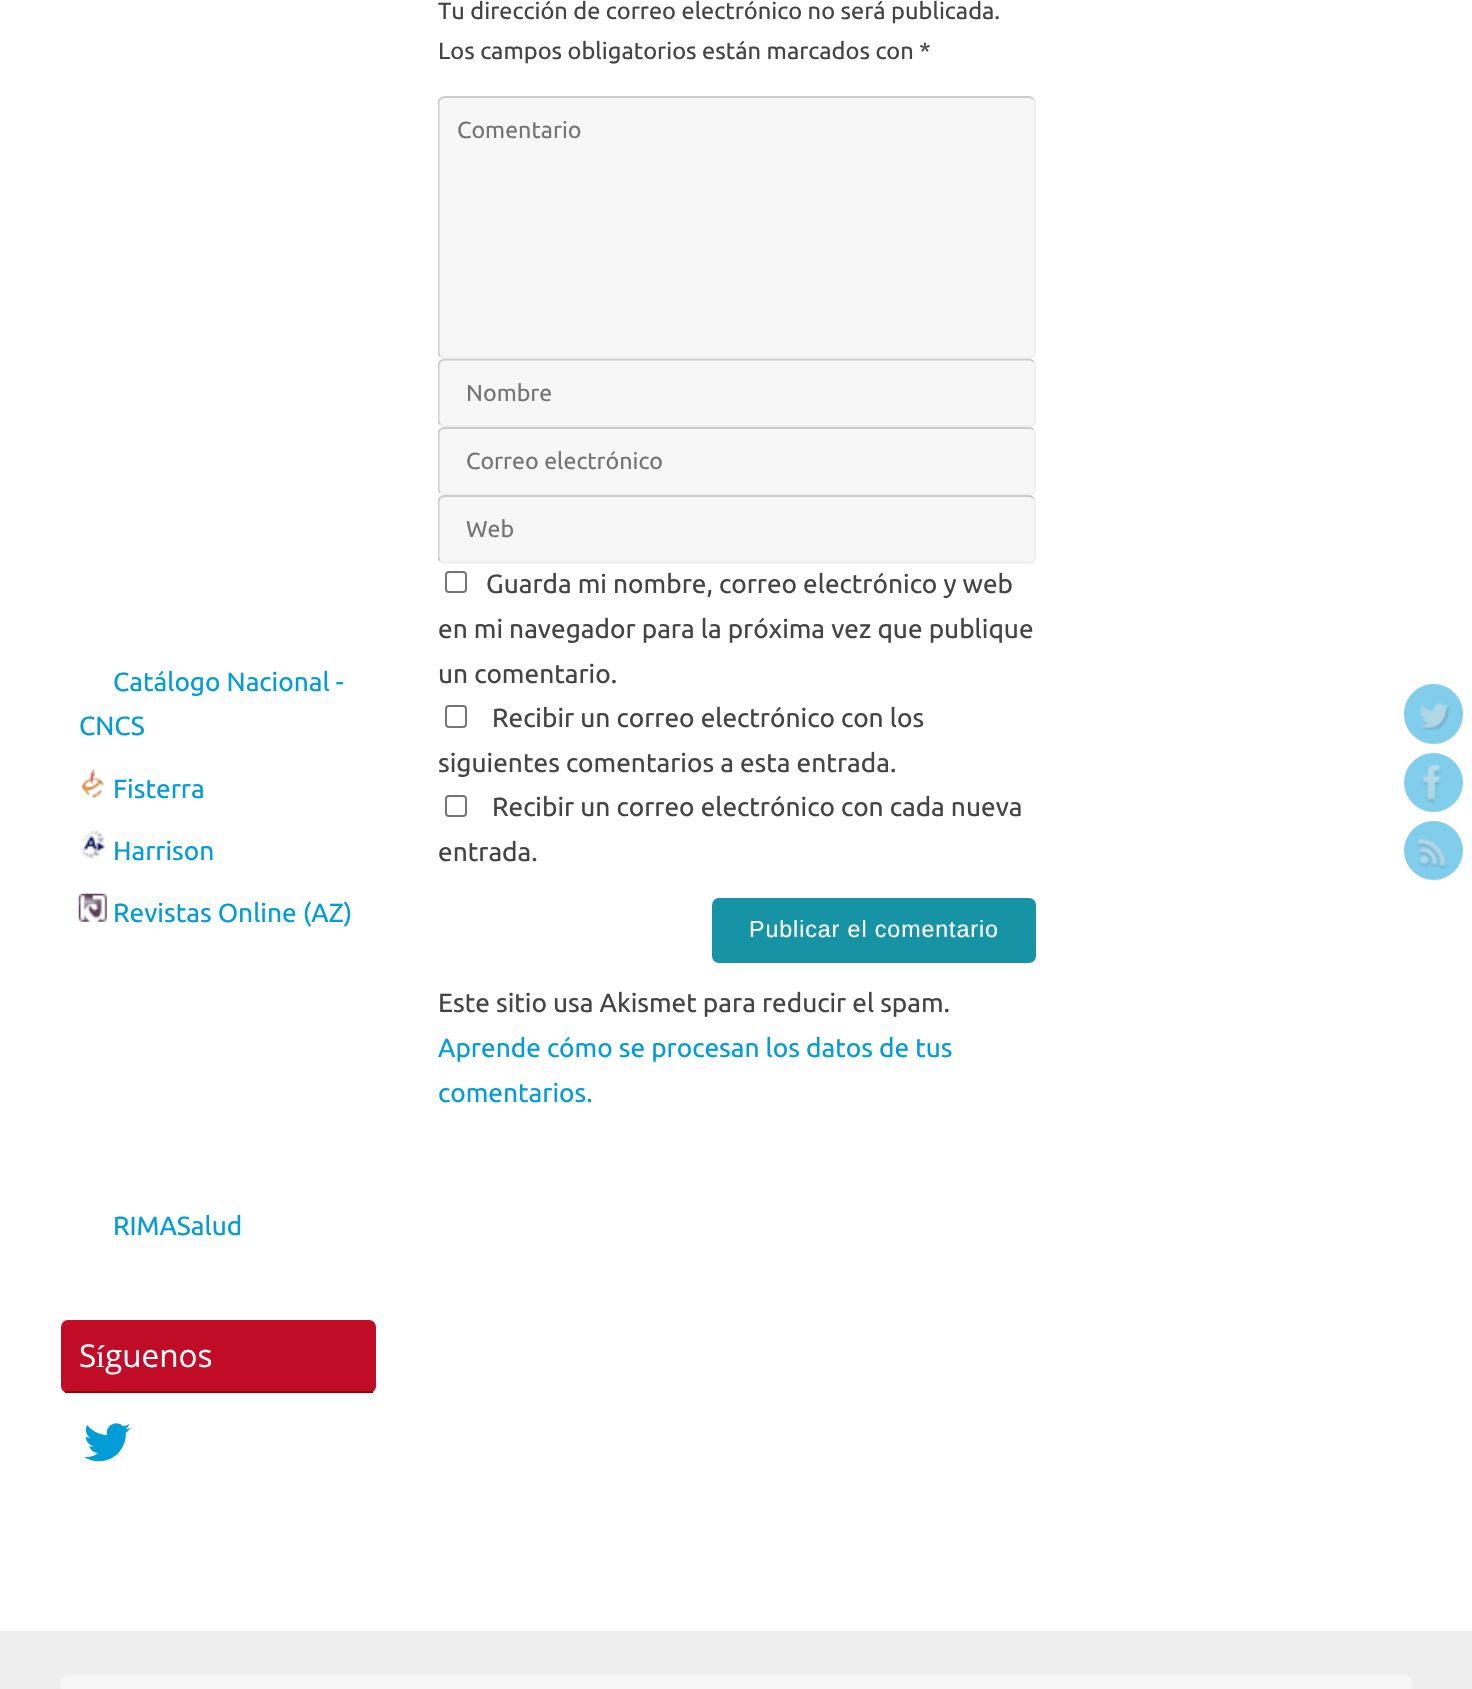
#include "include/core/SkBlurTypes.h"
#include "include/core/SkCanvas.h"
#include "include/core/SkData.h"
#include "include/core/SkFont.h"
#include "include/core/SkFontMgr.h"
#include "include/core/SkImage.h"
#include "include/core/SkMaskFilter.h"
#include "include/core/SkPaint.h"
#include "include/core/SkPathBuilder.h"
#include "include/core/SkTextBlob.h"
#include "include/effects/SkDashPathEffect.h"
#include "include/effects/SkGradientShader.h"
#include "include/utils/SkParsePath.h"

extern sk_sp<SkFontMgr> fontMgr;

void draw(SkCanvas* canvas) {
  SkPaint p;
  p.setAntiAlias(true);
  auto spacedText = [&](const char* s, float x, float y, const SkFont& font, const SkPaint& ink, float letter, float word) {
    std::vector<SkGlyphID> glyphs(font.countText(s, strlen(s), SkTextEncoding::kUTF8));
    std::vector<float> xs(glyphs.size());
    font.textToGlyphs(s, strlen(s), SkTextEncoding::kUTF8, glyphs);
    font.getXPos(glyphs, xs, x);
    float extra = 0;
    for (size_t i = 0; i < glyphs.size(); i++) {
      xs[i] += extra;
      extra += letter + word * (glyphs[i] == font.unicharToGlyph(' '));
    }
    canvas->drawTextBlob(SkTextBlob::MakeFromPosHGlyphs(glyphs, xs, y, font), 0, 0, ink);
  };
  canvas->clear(SK_ColorWHITE);
  canvas->drawImageRect(SkImages::DeferredFromEncodedData(SkData::MakeFromFileName("images/1.png")), SkRect::MakeLTRB(81, 769, 104, 798), SkSamplingOptions());
  canvas->drawImageRect(SkImages::DeferredFromEncodedData(SkData::MakeFromFileName("images/2.png")), SkRect::MakeLTRB(80, 830, 106, 859), SkSamplingOptions());
  canvas->drawImageRect(SkImages::DeferredFromEncodedData(SkData::MakeFromFileName("images/3.png")), SkRect::MakeLTRB(78, 893, 107, 922), SkSamplingOptions());
  p.setColor(SkColorSetRGB(192, 12, 39));
  canvas->drawRoundRect(SkRect::MakeLTRB(61, 1320, 376, 1393), 7, 7, p);
  p.setColor(SkColorSetRGB(152, 0, 0));
  canvas->drawRect(SkRect::MakeLTRB(65, 1391, 373, 1393), p);
  canvas->drawImageRect(SkImages::DeferredFromEncodedData(SkData::MakeFromFileName("images/4.png")), SkRect::MakeLTRB(84, 1423, 131, 1462), SkSamplingOptions());
  p.setColor(SkColorSetRGB(247, 247, 247));
  canvas->drawRoundRect(SkRect::MakeLTRB(438, 359, 1036, 427), 7, 7, p);
  p.setStyle(SkPaint::kStroke_Style);
  p.setStrokeWidth(1.8f);
  p.setColor(SkColorSetRGB(238, 238, 238));
  canvas->drawPath(SkPathBuilder().moveTo(1033.5f, 361.5f).cubicTo(1034.5f, 362.5f, 1035, 364, 1035, 366).lineTo(1035, 420).cubicTo(1035, 421.5f, 1034.5f, 423, 1033.5f, 424.5f).cubicTo(1032, 425.5f, 1030.5f, 426, 1029, 426).lineTo(444.5f, 426).cubicTo(443, 426, 441.5f, 425.5f, 440, 424.5f).detach(), p);
  canvas->save();
  canvas->clipRect(SkRect::MakeLTRB(438, 0, 1036, 984));
  p.setColor(SkColorSetRGB(204, 204, 204));
  canvas->drawPath(SkPathBuilder().moveTo(440, 424.5f).cubicTo(439, 423, 438.5f, 421.5f, 438.5f, 420).lineTo(438.5f, 366).cubicTo(438.5f, 364, 439, 362.5f, 440, 361.5f).cubicTo(441.5f, 360.5f, 443, 359.5f, 444.5f, 359.5f).lineTo(1029, 359.5f).cubicTo(1030.5f, 359.5f, 1032, 360.5f, 1033.5f, 361.5f).detach(), p);
  canvas->restore();
  p.setStyle(SkPaint::kFill_Style);
  p.setColor(SkColorSetRGB(247, 247, 247));
  canvas->drawRoundRect(SkRect::MakeLTRB(438, 96, 1036, 359), 7, 7, p);
  p.setStyle(SkPaint::kStroke_Style);
  p.setColor(SkColorSetRGB(238, 238, 238));
  canvas->drawPath(SkPathBuilder().moveTo(1033.5f, 99).cubicTo(1034.5f, 100, 1035, 101.5f, 1035, 103).lineTo(1035, 352).cubicTo(1035, 353.5f, 1034.5f, 355, 1033.5f, 356).cubicTo(1032, 357, 1030.5f, 358, 1029, 358).lineTo(444.5f, 358).cubicTo(443, 358, 441.5f, 357, 440, 356).detach(), p);
  canvas->save();
  canvas->clipRect(SkRect::MakeLTRB(438, 0, 1036, 984));
  p.setColor(SkColorSetRGB(204, 204, 204));
  canvas->drawPath(SkPathBuilder().moveTo(440, 356).cubicTo(439, 355, 438.5f, 353.5f, 438.5f, 352).lineTo(438.5f, 103).cubicTo(438.5f, 101.5f, 439, 100, 440, 99).cubicTo(441.5f, 98, 443, 97, 444.5f, 97).lineTo(1029, 97).cubicTo(1030.5f, 97, 1032, 98, 1033.5f, 99).detach(), p);
  canvas->restore();
  p.setStyle(SkPaint::kFill_Style);
  p.setColor(SkColorSetRGB(247, 247, 247));
  canvas->drawRoundRect(SkRect::MakeLTRB(438, 427, 1036, 495), 7, 7, p);
  p.setStyle(SkPaint::kStroke_Style);
  p.setColor(SkColorSetRGB(238, 238, 238));
  canvas->drawPath(SkPathBuilder().moveTo(1033.5f, 429.5f).cubicTo(1034.5f, 431, 1035, 432.5f, 1035, 434).lineTo(1035, 488).cubicTo(1035, 490, 1034.5f, 491.5f, 1033.5f, 492.5f).cubicTo(1032, 493.5f, 1030.5f, 494.5f, 1029, 494.5f).lineTo(444.5f, 494.5f).cubicTo(443, 494.5f, 441.5f, 493.5f, 440, 492.5f).detach(), p);
  canvas->save();
  canvas->clipRect(SkRect::MakeLTRB(438, 0, 1036, 984));
  p.setColor(SkColorSetRGB(204, 204, 204));
  canvas->drawPath(SkPathBuilder().moveTo(440, 492.5f).cubicTo(439, 491.5f, 438.5f, 490, 438.5f, 488).lineTo(438.5f, 434).cubicTo(438.5f, 432.5f, 439, 431, 440, 429.5f).cubicTo(441.5f, 428.5f, 443, 428, 444.5f, 428).lineTo(1029, 428).cubicTo(1030.5f, 428, 1032, 428.5f, 1033.5f, 429.5f).detach(), p);
  canvas->restore();
  p.setStyle(SkPaint::kFill_Style);
  p.setColor(SkColorSetRGB(247, 247, 247));
  canvas->drawRoundRect(SkRect::MakeLTRB(438, 495, 1036, 564), 7, 7, p);
  p.setStyle(SkPaint::kStroke_Style);
  p.setColor(SkColorSetRGB(238, 238, 238));
  canvas->drawPath(SkPathBuilder().moveTo(1033.5f, 498).cubicTo(1034.5f, 499, 1035, 500.5f, 1035, 502).lineTo(1035, 556.5f).cubicTo(1035, 558, 1034.5f, 559.5f, 1033.5f, 561).cubicTo(1032, 562, 1030.5f, 562.5f, 1029, 562.5f).lineTo(444.5f, 562.5f).cubicTo(443, 562.5f, 441.5f, 562, 440, 561).detach(), p);
  canvas->save();
  canvas->clipRect(SkRect::MakeLTRB(438, 0, 1036, 984));
  p.setColor(SkColorSetRGB(204, 204, 204));
  canvas->drawPath(SkPathBuilder().moveTo(440, 561).cubicTo(439, 559.5f, 438.5f, 558, 438.5f, 556.5f).lineTo(438.5f, 502).cubicTo(438.5f, 500.5f, 439, 499, 440, 498).cubicTo(441.5f, 497, 443, 496, 444.5f, 496).lineTo(1029, 496).cubicTo(1030.5f, 496, 1032, 497, 1033.5f, 498).detach(), p);
  canvas->restore();
  p.setStrokeWidth(2);
  p.setColor(SkColorSetRGB(118, 118, 118));
  canvas->drawRoundRect(SkRect::MakeLTRB(446, 572, 466, 592), 3, 3, p);
  canvas->drawRoundRect(SkRect::MakeLTRB(446, 706, 466, 727), 3, 3, p);
  canvas->drawRoundRect(SkRect::MakeLTRB(446, 796, 466, 816), 3, 3, p);
  p.setStyle(SkPaint::kFill_Style);
  p.setColor(SkColorSetRGB(22, 147, 165));
  canvas->drawRoundRect(SkRect::MakeLTRB(712, 898, 1036, 963), 7, 7, p);
  p.setColor(SkColorSetRGB(238, 238, 238));
  canvas->drawRect(SkRect::MakeLTRB(0, 1631, 1472, 1689), p);
  p.setColor(SkColorSetRGB(247, 247, 247));
  canvas->drawRoundRect(SkRect::MakeLTRB(61, 1675, 1412, 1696), 7, 7, p);
  p.setColor(SkColorSetRGB(129, 206, 236));
  canvas->drawRoundRect(SkRect::MakeLTRB(1404, 684, 1463, 744), 29.5f, 29.5f, p);
  canvas->drawImageRect(SkImages::DeferredFromEncodedData(SkData::MakeFromFileName("images/5.png")), SkRect::MakeLTRB(1420, 703, 1451, 730), SkSamplingOptions());
  canvas->drawCircle(1433.5f, 782.5f, 29.5f, p);
  canvas->drawImageRect(SkImages::DeferredFromEncodedData(SkData::MakeFromFileName("images/6.png")), SkRect::MakeLTRB(1421, 764, 1442, 803), SkSamplingOptions());
  canvas->drawCircle(1433.5f, 850.5f, 29.5f, p);
  canvas->drawImageRect(SkImages::DeferredFromEncodedData(SkData::MakeFromFileName("images/7.png")), SkRect::MakeLTRB(1416, 838, 1447, 869), SkSamplingOptions());
  SkFont font1(fontMgr->matchFamilyStyle("Ubuntu", SkFontStyle::Normal()), 26.25f);
  font1.setSubpixel(true);
  p.setColor(SkColorSetRGB(2, 156, 216));
  canvas->drawString("Catálogo Nacional -", 113, 691, font1, p);
  canvas->drawString("CNCS", 79, 735, font1, p);
  canvas->drawString("Fisterra", 113, 798, font1, p);
  canvas->drawString("Harrison", 113, 860, font1, p);
  canvas->drawString("Revistas Online (AZ)", 113, 922, font1, p);
  canvas->drawString("RIMASalud", 113, 1235, font1, p);
  SkFont font2(fontMgr->matchFamilyStyle("Open Sans", SkFontStyle::Normal()), 31.5f);
  font2.setSubpixel(true);
  p.setColor(SK_ColorWHITE);
  canvas->drawString("S", 79, 1367, font2, p);
  SkFont font3(fontMgr->matchFamilyStyle("Liberation Serif", SkFontStyle::Normal()), 31.5f);
  font3.setSubpixel(true);
  canvas->drawString("í", 96, 1367, font3, p);
  canvas->drawString("guenos", 105, 1367, font2, p);
  SkFont font4(fontMgr->matchFamilyStyle("Ubuntu", SkFontStyle::Normal()), 23.6f);
  font4.setSubpixel(true);
  p.setColor(SkColorSetRGB(68, 68, 68));
  canvas->drawString("Tu dirección de correo electrónico no será publicada.", 438, 19, font4, p);
  canvas->drawString("Los campos obligatorios están marcados con *", 438, 59, font4, p);
  SkFont font5(fontMgr->matchFamilyStyle("Ubuntu", SkFontStyle::Normal()), 23.25f);
  font5.setSubpixel(true);
  p.setColor(SkColorSetRGB(117, 117, 117));
  canvas->drawString("Comentario", 457, 138, font5, p);
  canvas->drawString("Nombre", 466, 401, font5, p);
  canvas->drawString("Correo electrónico", 466, 469, font5, p);
  canvas->drawString("Web", 466, 537, font5, p);
  p.setColor(SkColorSetRGB(68, 68, 68));
  canvas->drawString("Guarda mi nombre, correo electrónico y web", 486, 593, font1, p);
  canvas->drawString("en mi navegador para la próxima vez que publique", 438, 638, font1, p);
  canvas->drawString("un comentario.", 438, 683, font1, p);
  canvas->drawString("Recibir un correo electrónico con los", 492, 727, font1, p);
  canvas->drawString("siguientes comentarios a esta entrada.", 438, 772, font1, p);
  canvas->drawString("Recibir un correo electrónico con cada nueva", 492, 816, font1, p);
  canvas->drawString("entrada.", 438, 861, font1, p);
  SkFont font6(fontMgr->matchFamilyStyle("Liberation Sans", SkFontStyle::Normal()), 23.25f);
  font6.setSubpixel(true);
  p.setColor(SK_ColorWHITE);
  spacedText("Publicar el comentario", 749, 937, font6, p, 0.9f, 0);
  p.setColor(SkColorSetRGB(68, 68, 68));
  canvas->drawString("Este sitio usa Akismet para reducir el spam.", 438, 1012, font1, p);
  p.setColor(SkColorSetRGB(2, 156, 216));
  canvas->drawString("Aprende cómo se procesan los datos de tus", 438, 1057, font1, p);
  canvas->drawString("comentarios.", 438, 1102, font1, p);
}
